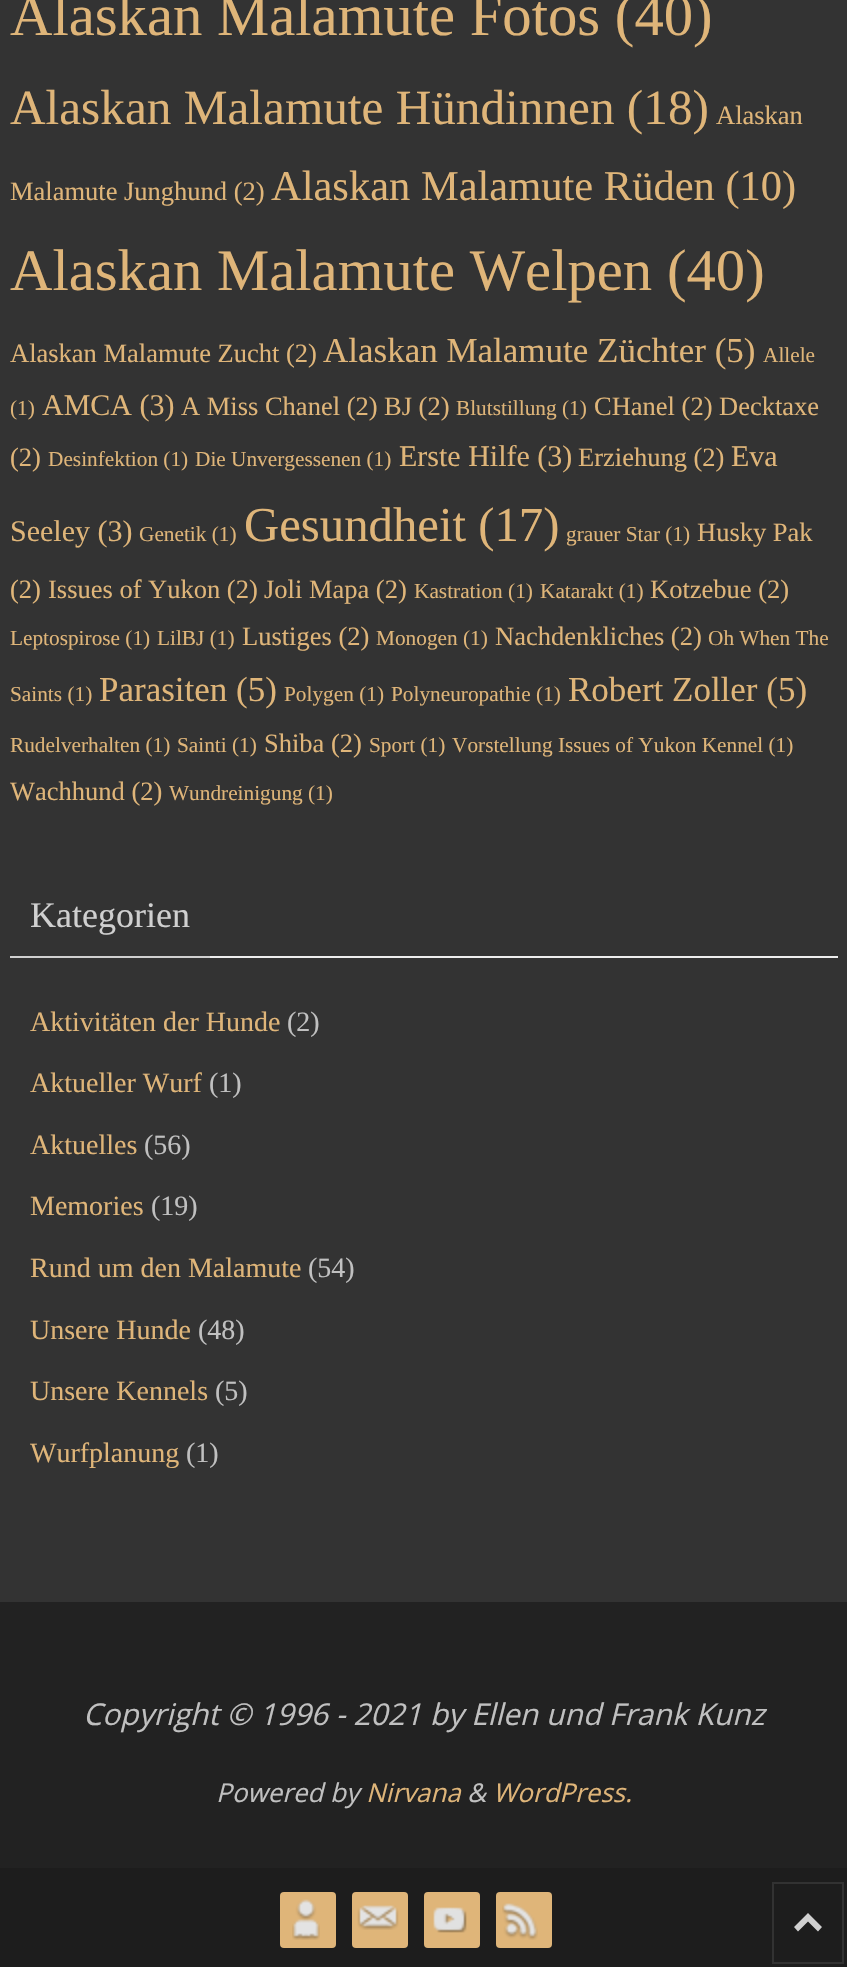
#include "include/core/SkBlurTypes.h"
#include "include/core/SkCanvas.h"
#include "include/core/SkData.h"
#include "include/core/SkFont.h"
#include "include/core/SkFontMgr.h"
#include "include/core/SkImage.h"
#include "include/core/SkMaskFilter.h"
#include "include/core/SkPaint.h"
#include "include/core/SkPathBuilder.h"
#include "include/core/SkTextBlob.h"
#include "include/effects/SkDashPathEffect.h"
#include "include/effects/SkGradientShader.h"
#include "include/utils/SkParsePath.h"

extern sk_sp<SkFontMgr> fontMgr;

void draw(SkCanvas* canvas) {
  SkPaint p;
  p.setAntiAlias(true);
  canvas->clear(SkColorSetRGB(51, 51, 51));
  p.setColor(SkColorSetRGB(238, 238, 238));
  canvas->drawRect(SkRect::MakeLTRB(210, 956, 838, 958), p);
  p.setColor(SkColorSetRGB(208, 208, 208));
  canvas->drawRect(SkRect::MakeLTRB(10, 956, 210, 958), p);
  p.setColor(SkColorSetRGB(34, 34, 34));
  canvas->drawRect(SkRect::MakeLTRB(0, 1602, 847, 1868), p);
  p.setColor(SkColorSetRGB(29, 29, 29));
  canvas->drawRect(SkRect::MakeLTRB(0, 1868, 847, 1967), p);
  p.setColor(SkColorSetRGB(223, 181, 121));
  canvas->drawRoundRect(SkRect::MakeLTRB(280, 1892, 336, 1948), 4, 4, p);
  canvas->drawImageRect(SkImages::DeferredFromEncodedData(SkData::MakeFromFileName("images/1.png")), SkRect::MakeLTRB(292, 1899, 320, 1940), SkSamplingOptions());
  canvas->drawRoundRect(SkRect::MakeLTRB(352, 1892, 408, 1948), 4, 4, p);
  canvas->drawImageRect(SkImages::DeferredFromEncodedData(SkData::MakeFromFileName("images/2.png")), SkRect::MakeLTRB(357, 1905, 399, 1930), SkSamplingOptions());
  canvas->drawRoundRect(SkRect::MakeLTRB(424, 1892, 480, 1948), 4, 4, p);
  canvas->drawImageRect(SkImages::DeferredFromEncodedData(SkData::MakeFromFileName("images/3.png")), SkRect::MakeLTRB(433, 1907, 467, 1933), SkSamplingOptions());
  canvas->drawRoundRect(SkRect::MakeLTRB(496, 1892, 552, 1948), 4, 4, p);
  canvas->drawImageRect(SkImages::DeferredFromEncodedData(SkData::MakeFromFileName("images/4.png")), SkRect::MakeLTRB(502, 1903, 538, 1940), SkSamplingOptions());
  p.setStyle(SkPaint::kStroke_Style);
  p.setStrokeWidth(2);
  p.setColor(SkColorSetRGB(50, 50, 50));
  canvas->drawRect(SkRect::MakeLTRB(773, 1883, 843, 1963), p);
  p.setStyle(SkPaint::kFill_Style);
  p.setColor(SkColorSetRGB(208, 208, 208));
  canvas->drawPath(SkPathBuilder().moveTo(794, 1927).lineTo(808, 1913).lineTo(822, 1927).lineTo(818, 1931.5f).lineTo(808, 1921.5f).lineTo(798, 1931.5f).close().detach(), p);
  SkFont font1(fontMgr->matchFamilyStyle("Liberation Serif", SkFontStyle::Normal()), 58.7f);
  font1.setSubpixel(true);
  p.setColor(SkColorSetRGB(223, 181, 121));
  canvas->drawString("Alaskan Malamute Fotos (40)", 10, 35, font1, p);
  SkFont font2(fontMgr->matchFamilyStyle("Liberation Serif", SkFontStyle::Normal()), 49.25f);
  font2.setSubpixel(true);
  canvas->drawString("Alaskan Malamute Hündinnen (18)", 10, 124, font2, p);
  SkFont font3(fontMgr->matchFamilyStyle("Liberation Serif", SkFontStyle::Normal()), 26.5f);
  font3.setSubpixel(true);
  canvas->drawString("Alaskan", 716, 124, font3, p);
  canvas->drawString("Malamute Junghund (2)", 10, 200, font3, p);
  SkFont font4(fontMgr->matchFamilyStyle("Liberation Serif", SkFontStyle::Normal()), 42.5f);
  font4.setSubpixel(true);
  canvas->drawString("Alaskan Malamute Rüden (10)", 271, 200, font4, p);
  canvas->drawString("Alaskan Malamute Welpen (40)", 10, 290, font1, p);
  canvas->drawString("Alaskan Malamute Zucht (2)", 10, 362, font3, p);
  SkFont font5(fontMgr->matchFamilyStyle("Liberation Serif", SkFontStyle::Normal()), 35);
  font5.setSubpixel(true);
  canvas->drawString("Alaskan Malamute Züchter (5)", 323, 362, font5, p);
  SkFont font6(fontMgr->matchFamilyStyle("Liberation Serif", SkFontStyle::Normal()), 21.3f);
  font6.setSubpixel(true);
  canvas->drawString("Allele", 763, 362, font6, p);
  canvas->drawString("(1)", 10, 415, font6, p);
  SkFont font7(fontMgr->matchFamilyStyle("Liberation Serif", SkFontStyle::Normal()), 30);
  font7.setSubpixel(true);
  canvas->drawString("AMCA (3)", 42, 415, font7, p);
  canvas->drawString("A Miss Chanel (2)", 181, 415, font3, p);
  canvas->drawString("BJ (2)", 384, 415, font3, p);
  canvas->drawString("Blutstillung (1)", 456, 415, font6, p);
  canvas->drawString("CHanel (2)", 594, 415, font3, p);
  canvas->drawString("Decktaxe", 719, 415, font3, p);
  canvas->drawString("(2)", 10, 466, font3, p);
  canvas->drawString("Desinfektion (1)", 48, 466, font6, p);
  canvas->drawString("Die Unvergessenen (1)", 195, 466, font6, p);
  canvas->drawString("Erste Hilfe (3)", 399, 466, font7, p);
  canvas->drawString("Erziehung (2)", 578, 466, font3, p);
  canvas->drawString("Eva", 731, 466, font7, p);
  canvas->drawString("Seeley (3)", 10, 541, font7, p);
  canvas->drawString("Genetik (1)", 139, 541, font6, p);
  SkFont font8(fontMgr->matchFamilyStyle("Liberation Serif", SkFontStyle::Normal()), 48.75f);
  font8.setSubpixel(true);
  canvas->drawString("Gesundheit (17)", 244, 541, font8, p);
  canvas->drawString("grauer Star (1)", 566, 541, font6, p);
  canvas->drawString("Husky Pak", 697, 541, font3, p);
  canvas->drawString("(2)", 10, 598, font3, p);
  canvas->drawString("Issues of Yukon (2)", 48, 598, font3, p);
  canvas->drawString("Joli Mapa (2)", 264, 598, font3, p);
  canvas->drawString("Kastration (1)", 414, 598, font6, p);
  canvas->drawString("Katarakt (1)", 540, 598, font6, p);
  canvas->drawString("Kotzebue (2)", 650, 598, font3, p);
  canvas->drawString("Leptospirose (1)", 10, 645, font6, p);
  canvas->drawString("LilBJ (1)", 157, 645, font6, p);
  canvas->drawString("Lustiges (2)", 242, 645, font3, p);
  canvas->drawString("Monogen (1)", 376, 645, font6, p);
  canvas->drawString("Nachdenkliches (2)", 495, 645, font3, p);
  canvas->drawString("Oh When The", 708, 645, font6, p);
  canvas->drawString("Saints (1)", 10, 701, font6, p);
  canvas->drawString("Parasiten (5)", 99, 701, font5, p);
  canvas->drawString("Polygen (1)", 284, 701, font6, p);
  canvas->drawString("Polyneuropathie (1)", 391, 701, font6, p);
  canvas->drawString("Robert Zoller (5)", 568, 701, font5, p);
  canvas->drawString("Rudelverhalten (1)", 10, 752, font6, p);
  canvas->drawString("Sainti (1)", 177, 752, font6, p);
  canvas->drawString("Shiba (2)", 264, 752, font3, p);
  canvas->drawString("Sport (1)", 369, 752, font6, p);
  canvas->drawString("Vorstellung Issues of Yukon Kennel (1)", 452, 752, font6, p);
  canvas->drawString("Wachhund (2)", 10, 800, font3, p);
  canvas->drawString("Wundreinigung (1)", 169, 800, font6, p);
  SkFont font9(fontMgr->matchFamilyStyle("Liberation Serif", SkFontStyle::Normal()), 36);
  font9.setSubpixel(true);
  p.setColor(SkColorSetRGB(208, 208, 208));
  canvas->drawString("Kategorien", 30, 927, font9, p);
  SkFont font10(fontMgr->matchFamilyStyle("Liberation Serif", SkFontStyle::Normal()), 28);
  font10.setSubpixel(true);
  p.setColor(SkColorSetRGB(223, 181, 121));
  canvas->drawString("Aktivitäten der Hunde", 30, 1031, font10, p);
  p.setColor(SkColorSetRGB(192, 192, 192));
  canvas->drawString("(2)", 287, 1031, font10, p);
  p.setColor(SkColorSetRGB(223, 181, 121));
  canvas->drawString("Aktueller Wurf", 30, 1092, font10, p);
  p.setColor(SkColorSetRGB(192, 192, 192));
  canvas->drawString("(1)", 209, 1092, font10, p);
  p.setColor(SkColorSetRGB(223, 181, 121));
  canvas->drawString("Aktuelles", 30, 1154, font10, p);
  p.setColor(SkColorSetRGB(192, 192, 192));
  canvas->drawString("(56)", 144, 1154, font10, p);
  p.setColor(SkColorSetRGB(223, 181, 121));
  canvas->drawString("Memories", 30, 1215, font10, p);
  p.setColor(SkColorSetRGB(192, 192, 192));
  canvas->drawString("(19)", 151, 1215, font10, p);
  p.setColor(SkColorSetRGB(223, 181, 121));
  canvas->drawString("Rund um den Malamute", 30, 1277, font10, p);
  p.setColor(SkColorSetRGB(192, 192, 192));
  canvas->drawString("(54)", 308, 1277, font10, p);
  p.setColor(SkColorSetRGB(223, 181, 121));
  canvas->drawString("Unsere Hunde", 30, 1339, font10, p);
  p.setColor(SkColorSetRGB(192, 192, 192));
  canvas->drawString("(48)", 198, 1339, font10, p);
  p.setColor(SkColorSetRGB(223, 181, 121));
  canvas->drawString("Unsere Kennels", 30, 1400, font10, p);
  p.setColor(SkColorSetRGB(192, 192, 192));
  canvas->drawString("(5)", 215, 1400, font10, p);
  p.setColor(SkColorSetRGB(223, 181, 121));
  canvas->drawString("Wurfplanung", 30, 1462, font10, p);
  p.setColor(SkColorSetRGB(192, 192, 192));
  canvas->drawString("(1)", 186, 1462, font10, p);
  SkFont font11(fontMgr->matchFamilyStyle("Open Sans", SkFontStyle::Italic()), 30);
  font11.setSubpixel(true);
  canvas->drawString("Copyright © 1996 - 2021 by Ellen und Frank Kunz", 83, 1725, font11, p);
  SkFont font12(fontMgr->matchFamilyStyle("Open Sans", SkFontStyle::Italic()), 26);
  font12.setSubpixel(true);
  canvas->drawString("Powered by", 216, 1802, font12, p);
  p.setColor(SkColorSetRGB(223, 181, 121));
  canvas->drawString("Nirvana", 366, 1802, font12, p);
  p.setColor(SkColorSetRGB(192, 192, 192));
  canvas->drawString("&", 467, 1802, font12, p);
  p.setColor(SkColorSetRGB(223, 181, 121));
  canvas->drawString("WordPress.", 493, 1802, font12, p);
}
